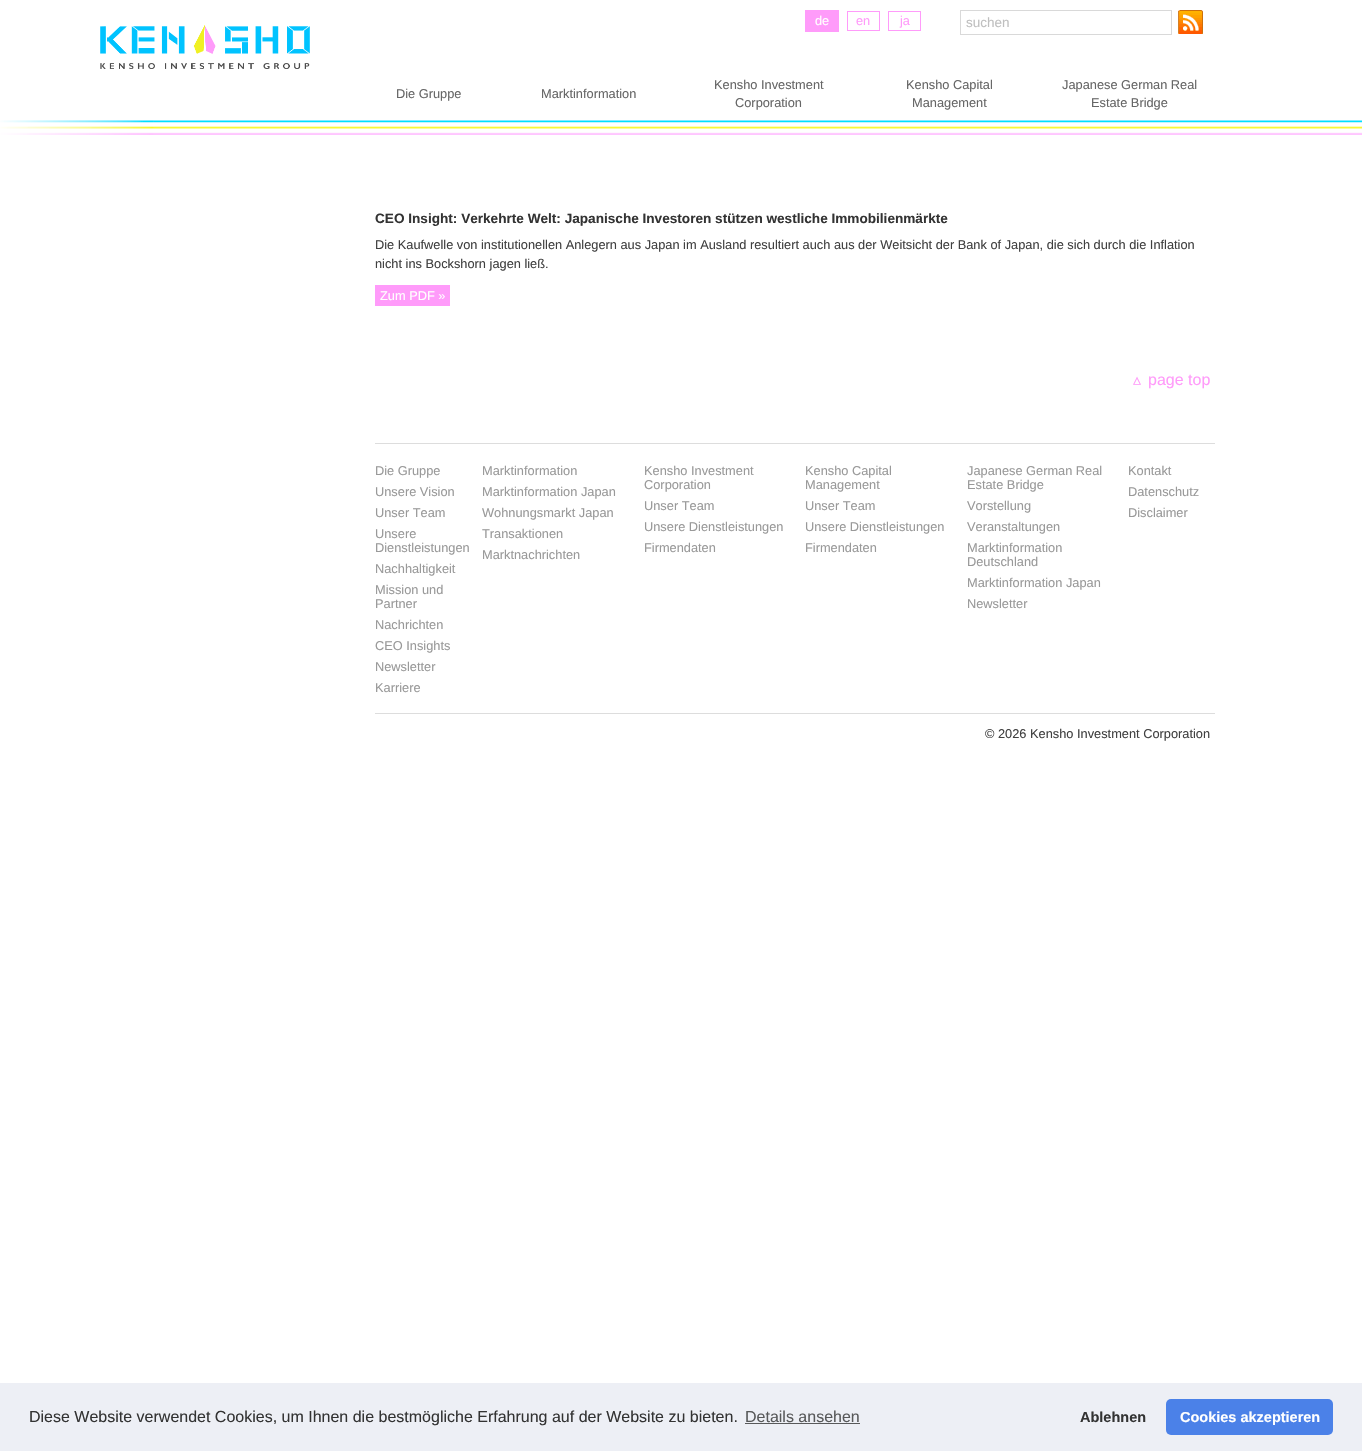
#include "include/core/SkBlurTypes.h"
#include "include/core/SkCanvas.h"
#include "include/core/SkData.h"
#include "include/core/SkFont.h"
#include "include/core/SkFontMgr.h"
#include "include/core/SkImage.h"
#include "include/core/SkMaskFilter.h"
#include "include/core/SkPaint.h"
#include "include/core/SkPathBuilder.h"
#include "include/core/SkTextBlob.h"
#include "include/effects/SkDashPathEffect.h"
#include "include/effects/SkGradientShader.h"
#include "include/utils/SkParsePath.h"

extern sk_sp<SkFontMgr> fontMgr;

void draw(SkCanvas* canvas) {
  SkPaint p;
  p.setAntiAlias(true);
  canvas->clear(SK_ColorWHITE);
  canvas->drawImageRect(SkImages::DeferredFromEncodedData(SkData::MakeFromFileName("images/1.png")), SkRect::MakeLTRB(0, 120, 1362, 135), SkSamplingOptions());
  p.setColor(SkColorSetRGB(255, 155, 250));
  canvas->drawRect(SkRect::MakeLTRB(805, 10, 839, 32), p);
  p.setStyle(SkPaint::kStroke_Style);
  p.setStrokeWidth(1);
  canvas->drawRect(SkRect::MakeLTRB(847.5f, 11.5f, 879.5f, 30.5f), p);
  canvas->drawRect(SkRect::MakeLTRB(888.5f, 11.5f, 920.5f, 30.5f), p);
  p.setColor(SkColorSetRGB(217, 217, 217));
  canvas->drawRect(SkRect::MakeLTRB(960.5f, 10.5f, 1171.5f, 34.5f), p);
  canvas->drawImageRect(SkImages::DeferredFromEncodedData(SkData::MakeFromFileName("images/2.png")), SkRect::MakeLTRB(1178, 10, 1203, 34), SkSamplingOptions());
  canvas->drawImageRect(SkImages::DeferredFromEncodedData(SkData::MakeFromFileName("images/3.png")), SkRect::MakeLTRB(100, 25, 310, 69), SkSamplingOptions());
  p.setStyle(SkPaint::kFill_Style);
  p.setColor(SkColorSetRGB(255, 155, 250));
  canvas->drawRect(SkRect::MakeLTRB(375, 285, 450, 306), p);
  p.setColor(SkColorSetRGB(221, 221, 221));
  canvas->drawRect(SkRect::MakeLTRB(375, 443, 1215, 444), p);
  canvas->drawRect(SkRect::MakeLTRB(375, 713, 1215, 714), p);
  p.setColor(SkColorSetRGB(237, 239, 245));
  canvas->drawRect(SkRect::MakeLTRB(0, 1383, 1362, 1451), p);
  p.setColor(SkColorSetRGB(88, 89, 90));
  canvas->drawRect(SkRect::MakeLTRB(745, 1423, 860, 1424), p);
  p.setColor(SkColorSetRGB(75, 129, 232));
  canvas->drawRoundRect(SkRect::MakeLTRB(1166, 1399, 1333, 1435), 5, 5, p);
  SkFont font1(fontMgr->matchFamilyStyle("Liberation Sans", SkFontStyle::Normal()), 12.8f);
  font1.setSubpixel(true);
  p.setColor(SK_ColorWHITE);
  canvas->drawString("de", 815, 25, font1, p);
  p.setColor(SkColorSetRGB(255, 155, 250));
  canvas->drawString("en", 856, 25, font1, p);
  canvas->drawString("ja", 900, 25, font1, p);
  SkFont font2(fontMgr->matchFamilyStyle("Liberation Sans", SkFontStyle::Normal()), 13.5f);
  font2.setSubpixel(true);
  p.setColor(SkColorSetRGB(191, 191, 191));
  canvas->drawString("suchen", 966, 27, font2, p);
  p.setColor(SkColorSetRGB(102, 102, 102));
  canvas->drawString("Die Gruppe", 396, 98, font1, p);
  canvas->drawString("Marktinformation", 541, 98, font1, p);
  canvas->drawString("Kensho Investment", 714, 89, font1, p);
  canvas->drawString("Corporation", 735, 107, font1, p);
  canvas->drawString("Kensho Capital", 906, 89, font1, p);
  canvas->drawString("Management", 912, 107, font1, p);
  canvas->drawString("Japanese German Real", 1062, 89, font1, p);
  canvas->drawString("Estate Bridge", 1091, 107, font1, p);
  SkFont font3(fontMgr->matchFamilyStyle("Liberation Sans", SkFontStyle::Bold()), 13.6f);
  font3.setSubpixel(true);
  p.setColor(SkColorSetRGB(51, 51, 51));
  canvas->drawString("CEO Insight: Verkehrte Welt: Japanische Investoren stützen westliche Immobilienmärkte", 375, 223, font3, p);
  p.setColor(SkColorSetRGB(64, 64, 64));
  canvas->drawString("Die Kaufwelle von institutionellen Anlegern aus Japan im Ausland resultiert auch aus der Weitsicht der Bank of Japan, die sich durch die Inflation", 375, 249, font1, p);
  canvas->drawString("nicht ins Bockshorn jagen ließ.", 375, 268, font1, p);
  p.setColor(SK_ColorWHITE);
  canvas->drawString("Zum PDF »", 380, 300, font1, p);
  SkFont font4(fontMgr->matchFamilyStyle("DejaVu Sans", SkFontStyle::Normal()), 16);
  font4.setSubpixel(true);
  p.setColor(SkColorSetRGB(255, 155, 250));
  canvas->drawString("▵", 1133, 385, font4, p);
  SkFont font5(fontMgr->matchFamilyStyle("Liberation Sans", SkFontStyle::Normal()), 16);
  font5.setSubpixel(true);
  canvas->drawString("page top", 1148, 385, font5, p);
  p.setColor(SkColorSetRGB(153, 153, 153));
  canvas->drawString("Die Gruppe", 375, 475, font1, p);
  canvas->drawString("Unsere Vision", 375, 496, font1, p);
  canvas->drawString("Unser Team", 375, 517, font1, p);
  canvas->drawString("Unsere", 375, 538, font1, p);
  canvas->drawString("Dienstleistungen", 375, 552, font1, p);
  canvas->drawString("Nachhaltigkeit", 375, 573, font1, p);
  canvas->drawString("Mission und", 375, 594, font1, p);
  canvas->drawString("Partner", 375, 608, font1, p);
  canvas->drawString("Nachrichten", 375, 629, font1, p);
  canvas->drawString("CEO Insights", 375, 650, font1, p);
  canvas->drawString("Newsletter", 375, 671, font1, p);
  canvas->drawString("Karriere", 375, 692, font1, p);
  canvas->drawString("Marktinformation", 482, 475, font1, p);
  canvas->drawString("Marktinformation Japan", 482, 496, font1, p);
  canvas->drawString("Wohnungsmarkt Japan", 482, 517, font1, p);
  canvas->drawString("Transaktionen", 482, 538, font1, p);
  canvas->drawString("Marktnachrichten", 482, 559, font1, p);
  canvas->drawString("Kensho Investment", 644, 475, font1, p);
  canvas->drawString("Corporation", 644, 489, font1, p);
  canvas->drawString("Unser Team", 644, 510, font1, p);
  canvas->drawString("Unsere Dienstleistungen", 644, 531, font1, p);
  canvas->drawString("Firmendaten", 644, 552, font1, p);
  canvas->drawString("Kensho Capital", 805, 475, font1, p);
  canvas->drawString("Management", 805, 489, font1, p);
  canvas->drawString("Unser Team", 805, 510, font1, p);
  canvas->drawString("Unsere Dienstleistungen", 805, 531, font1, p);
  canvas->drawString("Firmendaten", 805, 552, font1, p);
  canvas->drawString("Japanese German Real", 967, 475, font1, p);
  canvas->drawString("Estate Bridge", 967, 489, font1, p);
  canvas->drawString("Vorstellung", 967, 510, font1, p);
  canvas->drawString("Veranstaltungen", 967, 531, font1, p);
  canvas->drawString("Marktinformation", 967, 552, font1, p);
  canvas->drawString("Deutschland", 967, 566, font1, p);
  canvas->drawString("Marktinformation Japan", 967, 587, font1, p);
  canvas->drawString("Newsletter", 967, 608, font1, p);
  canvas->drawString("Kontakt", 1128, 475, font1, p);
  canvas->drawString("Datenschutz", 1128, 496, font1, p);
  canvas->drawString("Disclaimer", 1128, 517, font1, p);
  p.setColor(SkColorSetRGB(64, 64, 64));
  canvas->drawString("© 2026 Kensho Investment Corporation", 985, 738, font1, p);
  p.setColor(SkColorSetRGB(51, 51, 51));
  canvas->drawString("Diese Website verwendet Cookies, um Ihnen die bestmögliche Erfahrung auf der Website zu bieten.", 29, 1422, font5, p);
  p.setColor(SkColorSetRGB(88, 89, 90));
  canvas->drawString("Details ansehen", 745, 1422, font5, p);
  SkFont font6(fontMgr->matchFamilyStyle("Liberation Sans", SkFontStyle::Bold()), 14.5f);
  font6.setSubpixel(true);
  p.setColor(SkColorSetRGB(51, 51, 51));
  canvas->drawString("Ablehnen", 1080, 1422, font6, p);
  p.setColor(SK_ColorWHITE);
  canvas->drawString("Cookies akzeptieren", 1180, 1422, font6, p);
}
